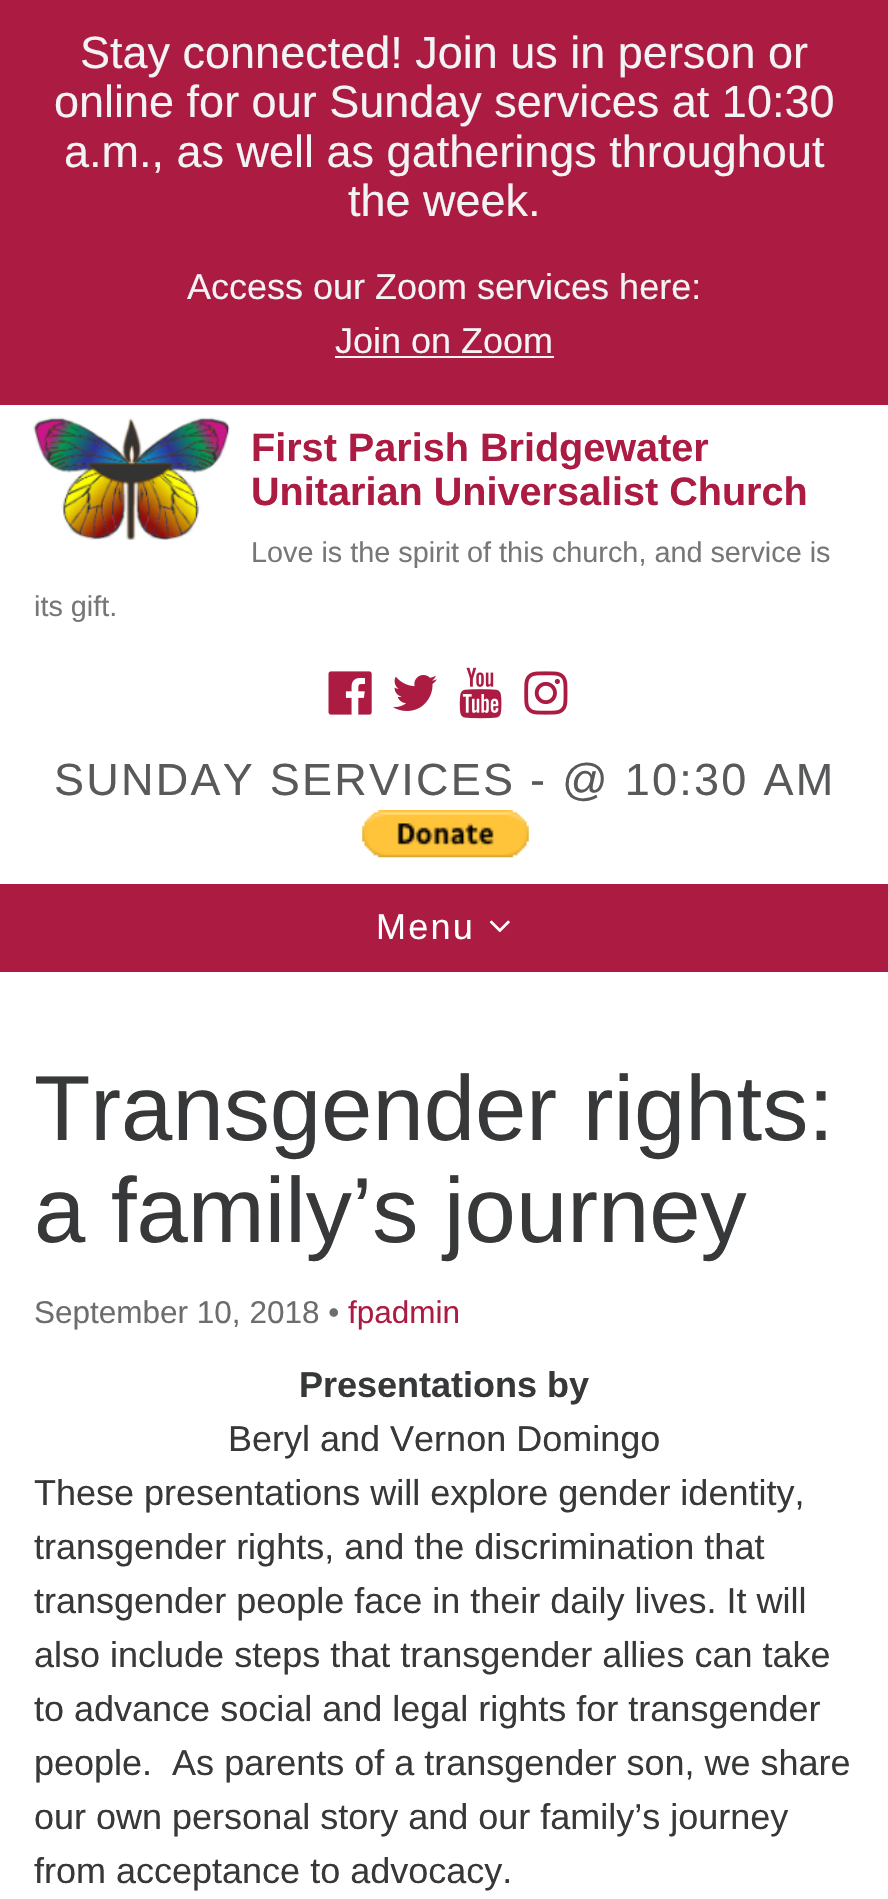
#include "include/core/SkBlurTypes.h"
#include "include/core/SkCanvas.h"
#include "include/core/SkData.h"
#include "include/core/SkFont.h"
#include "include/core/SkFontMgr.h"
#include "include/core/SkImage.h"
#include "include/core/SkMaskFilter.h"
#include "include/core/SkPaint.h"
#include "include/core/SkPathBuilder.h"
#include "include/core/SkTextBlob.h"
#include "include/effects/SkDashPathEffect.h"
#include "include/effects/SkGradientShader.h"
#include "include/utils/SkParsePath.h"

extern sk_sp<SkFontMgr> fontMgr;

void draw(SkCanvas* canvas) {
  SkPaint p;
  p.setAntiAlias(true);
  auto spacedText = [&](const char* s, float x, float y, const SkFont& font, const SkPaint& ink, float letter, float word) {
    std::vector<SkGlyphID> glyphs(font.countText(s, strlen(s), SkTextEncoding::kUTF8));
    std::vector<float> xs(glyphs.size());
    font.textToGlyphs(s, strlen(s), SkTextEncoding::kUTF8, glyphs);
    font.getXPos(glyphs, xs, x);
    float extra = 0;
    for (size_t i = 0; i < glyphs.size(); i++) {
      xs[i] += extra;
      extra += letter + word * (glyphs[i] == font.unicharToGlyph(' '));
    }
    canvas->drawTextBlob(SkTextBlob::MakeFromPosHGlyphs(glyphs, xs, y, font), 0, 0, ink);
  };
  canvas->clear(SkColorSetRGB(171, 27, 66));
  p.setColor(SkColorSetRGB(242, 243, 244));
  canvas->drawRect(SkRect::MakeLTRB(335, 356, 554, 358), p);
  p.setColor(SK_ColorWHITE);
  canvas->drawRect(SkRect::MakeLTRB(0, 405, 888, 884), p);
  canvas->drawImageRect(SkImages::DeferredFromEncodedData(SkData::MakeFromFileName("images/1.png")), SkRect::MakeLTRB(33, 417, 230, 540), SkSamplingOptions());
  canvas->drawImageRect(SkImages::DeferredFromEncodedData(SkData::MakeFromFileName("images/2.png")), SkRect::MakeLTRB(328, 671, 372, 715), SkSamplingOptions());
  canvas->drawImageRect(SkImages::DeferredFromEncodedData(SkData::MakeFromFileName("images/3.png")), SkRect::MakeLTRB(393, 675, 437, 711), SkSamplingOptions());
  canvas->drawImageRect(SkImages::DeferredFromEncodedData(SkData::MakeFromFileName("images/4.png")), SkRect::MakeLTRB(459, 667, 502, 719), SkSamplingOptions());
  canvas->drawImageRect(SkImages::DeferredFromEncodedData(SkData::MakeFromFileName("images/5.png")), SkRect::MakeLTRB(524, 671, 568, 715), SkSamplingOptions());
  canvas->drawImageRect(SkImages::DeferredFromEncodedData(SkData::MakeFromFileName("images/6.png")), SkRect::MakeLTRB(362, 810, 529, 858), SkSamplingOptions());
  canvas->drawImageRect(SkImages::DeferredFromEncodedData(SkData::MakeFromFileName("images/7.png")), SkRect::MakeLTRB(489, 920, 510, 933), SkSamplingOptions());
  canvas->drawRect(SkRect::MakeLTRB(0, 972, 888, 1899), p);
  SkFont font1(fontMgr->matchFamilyStyle("Liberation Sans", SkFontStyle::Normal()), 45);
  font1.setSubpixel(true);
  p.setColor(SkColorSetRGB(242, 243, 244));
  canvas->drawString("Stay connected! Join us in person or", 80, 68, font1, p);
  canvas->drawString("online for our Sunday services at 10:30", 54, 117, font1, p);
  canvas->drawString("a.m., as well as gatherings throughout", 64, 167, font1, p);
  canvas->drawString("the week.", 348, 216, font1, p);
  SkFont font2(fontMgr->matchFamilyStyle("Liberation Sans", SkFontStyle::Normal()), 36);
  font2.setSubpixel(true);
  canvas->drawString("Access our Zoom services here:", 187, 299, font2, p);
  canvas->drawString("Join on Zoom", 335, 353, font2, p);
  SkFont font3(fontMgr->matchFamilyStyle("Liberation Sans", SkFontStyle::Bold()), 39.6f);
  font3.setSubpixel(true);
  p.setColor(SkColorSetRGB(171, 27, 66));
  canvas->drawString("First Parish Bridgewater", 251, 461, font3, p);
  canvas->drawString("Unitarian Universalist Church", 251, 505, font3, p);
  SkFont font4(fontMgr->matchFamilyStyle("Liberation Sans", SkFontStyle::Normal()), 28.8f);
  font4.setSubpixel(true);
  p.setColor(SkColorSetRGB(119, 119, 119));
  canvas->drawString("Love is the spirit of this church, and service is", 251, 562, font4, p);
  canvas->drawString("its gift.", 34, 616, font4, p);
  p.setColor(SkColorSetRGB(88, 89, 91));
  spacedText("SUNDAY SERVICES - @ 10:30 AM", 54, 795, font1, p, 2.25f, 0);
  p.setColor(SK_ColorWHITE);
  spacedText("Menu", 376, 939, font2, p, 2.25f, 0);
  SkFont font5(fontMgr->matchFamilyStyle("Liberation Sans", SkFontStyle::Normal()), 92.25f);
  font5.setSubpixel(true);
  p.setColor(SkColorSetRGB(55, 56, 57));
  canvas->drawString("Transgender rights:", 34, 1140, font5, p);
  canvas->drawString("a family’s journey", 34, 1242, font5, p);
  SkFont font6(fontMgr->matchFamilyStyle("Liberation Sans", SkFontStyle::Normal()), 31.5f);
  font6.setSubpixel(true);
  p.setColor(SkColorSetRGB(108, 109, 111));
  canvas->drawString("September 10, 2018 •", 34, 1323, font6, p);
  p.setColor(SkColorSetRGB(171, 27, 66));
  canvas->drawString("fpadmin", 348, 1323, font6, p);
  SkFont font7(fontMgr->matchFamilyStyle("Liberation Sans", SkFontStyle::Bold()), 36);
  font7.setSubpixel(true);
  p.setColor(SkColorSetRGB(55, 56, 57));
  canvas->drawString("Presentations by", 299, 1397, font7, p);
  canvas->drawString("Beryl and Vernon Domingo", 228, 1451, font2, p);
  canvas->drawString("These presentations will explore gender identity,", 34, 1505, font2, p);
  canvas->drawString("transgender rights, and the discrimination that", 34, 1559, font2, p);
  canvas->drawString("transgender people face in their daily lives. It will", 34, 1613, font2, p);
  canvas->drawString("also include steps that transgender allies can take", 34, 1667, font2, p);
  canvas->drawString("to advance social and legal rights for transgender", 34, 1721, font2, p);
  canvas->drawString("people.  As parents of a transgender son, we share", 34, 1775, font2, p);
  canvas->drawString("our own personal story and our family’s journey", 34, 1829, font2, p);
  canvas->drawString("from acceptance to advocacy.", 34, 1883, font2, p);
}
